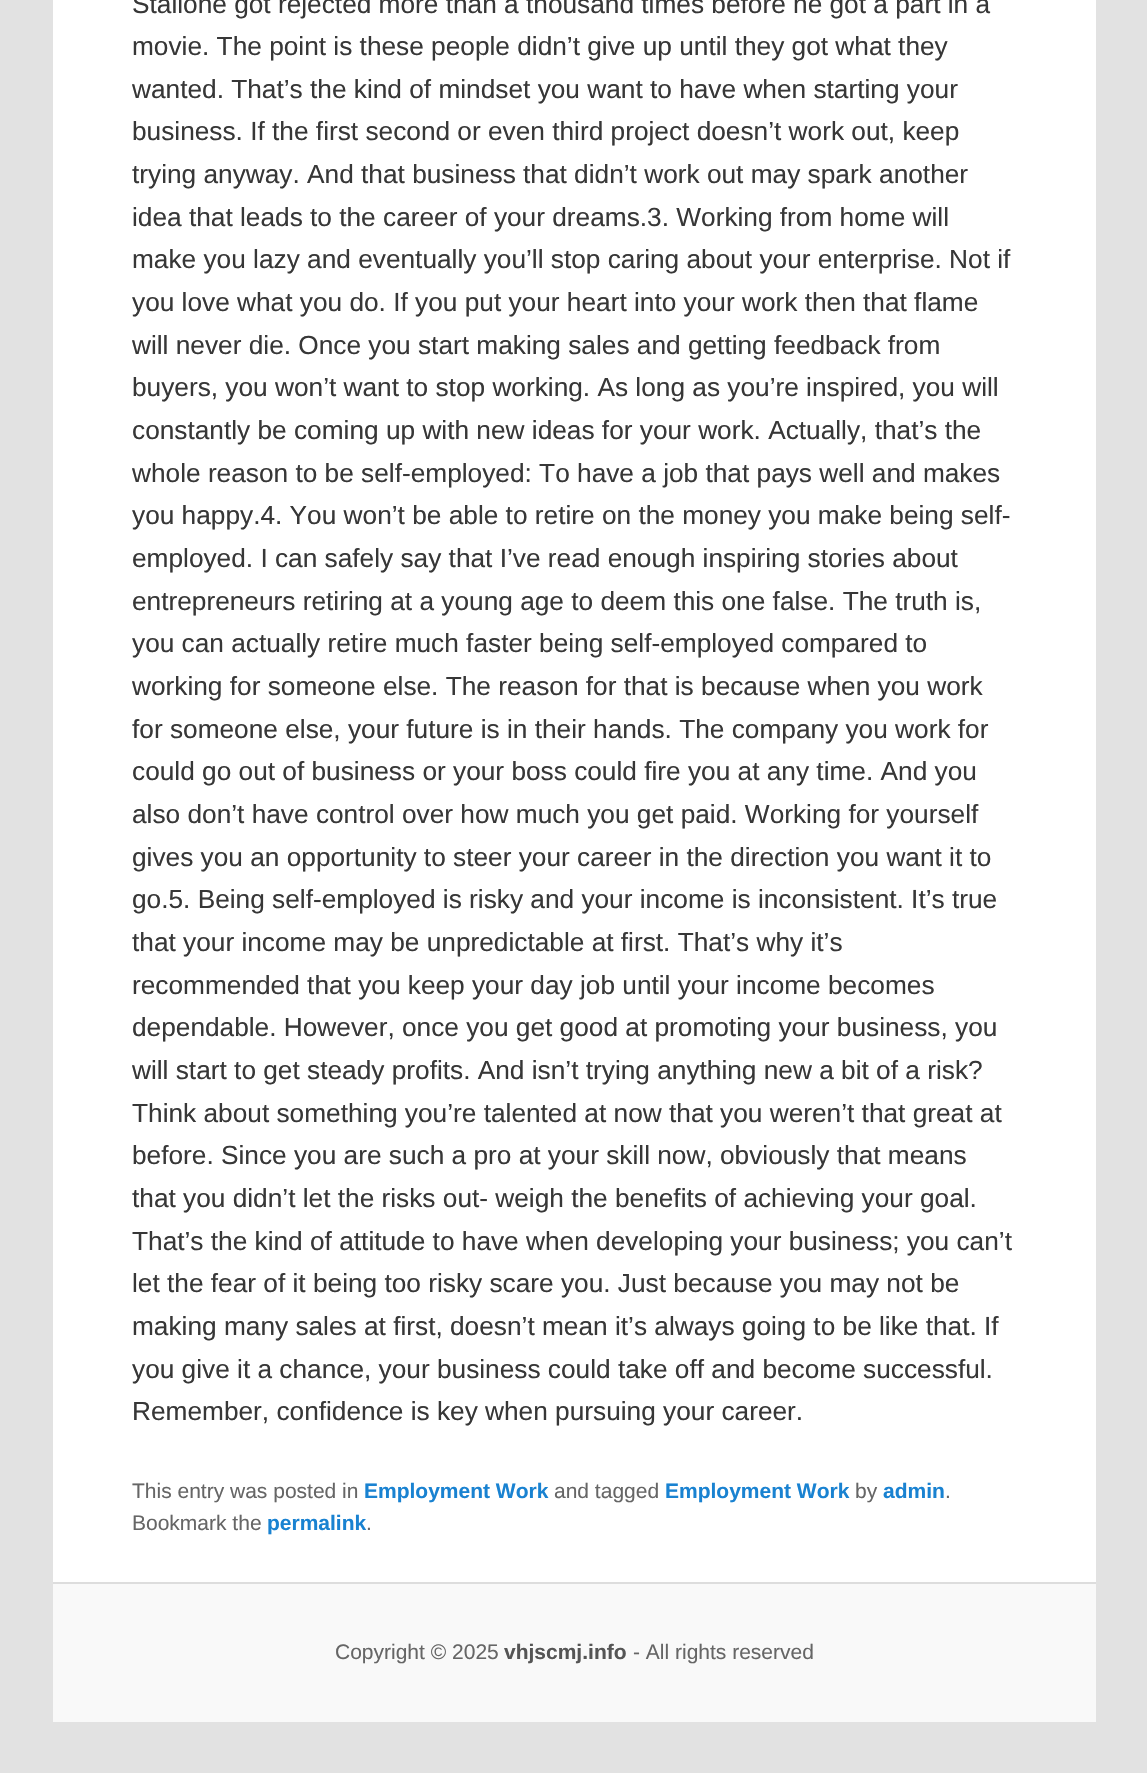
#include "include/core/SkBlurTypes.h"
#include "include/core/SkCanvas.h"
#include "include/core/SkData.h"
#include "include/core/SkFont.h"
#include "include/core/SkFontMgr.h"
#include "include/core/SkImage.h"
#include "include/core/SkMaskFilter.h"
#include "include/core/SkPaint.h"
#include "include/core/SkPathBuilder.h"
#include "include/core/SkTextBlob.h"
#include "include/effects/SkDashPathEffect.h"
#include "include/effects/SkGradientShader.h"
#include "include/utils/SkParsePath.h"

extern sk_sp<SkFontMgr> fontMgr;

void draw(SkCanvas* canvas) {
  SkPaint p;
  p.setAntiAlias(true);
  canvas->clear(SkColorSetRGB(226, 226, 226));
  p.setColor(SK_ColorWHITE);
  canvas->drawRect(SkRect::MakeLTRB(53, 0, 1096, 1582), p);
  p.setColor(SkColorSetRGB(249, 249, 249));
  canvas->drawRect(SkRect::MakeLTRB(53, 1584, 1096, 1722), p);
  p.setColor(SkColorSetRGB(221, 221, 221));
  canvas->drawRect(SkRect::MakeLTRB(53, 1582, 1096, 1584), p);
  SkFont font1(fontMgr->matchFamilyStyle("Liberation Sans", SkFontStyle::Normal()), 26.25f);
  font1.setSubpixel(true);
  p.setColor(SkColorSetRGB(55, 55, 55));
  canvas->drawString("Stallone got rejected more than a thousand times before he got a part in a", 132, 13, font1, p);
  canvas->drawString("movie. The point is these people didn’t give up until they got what they", 132, 55, font1, p);
  canvas->drawString("wanted. That’s the kind of mindset you want to have when starting your", 132, 98, font1, p);
  canvas->drawString("business. If the first second or even third project doesn’t work out, keep", 132, 140, font1, p);
  canvas->drawString("trying anyway. And that business that didn’t work out may spark another", 132, 183, font1, p);
  canvas->drawString("idea that leads to the career of your dreams.3. Working from home will", 132, 226, font1, p);
  canvas->drawString("make you lazy and eventually you’ll stop caring about your enterprise. Not if", 132, 268, font1, p);
  canvas->drawString("you love what you do. If you put your heart into your work then that flame", 132, 311, font1, p);
  canvas->drawString("will never die. Once you start making sales and getting feedback from", 132, 354, font1, p);
  canvas->drawString("buyers, you won’t want to stop working. As long as you’re inspired, you will", 132, 396, font1, p);
  canvas->drawString("constantly be coming up with new ideas for your work. Actually, that’s the", 132, 439, font1, p);
  canvas->drawString("whole reason to be self-employed: To have a job that pays well and makes", 132, 482, font1, p);
  canvas->drawString("you happy.4. You won’t be able to retire on the money you make being self-", 132, 524, font1, p);
  canvas->drawString("employed. I can safely say that I’ve read enough inspiring stories about", 132, 567, font1, p);
  canvas->drawString("entrepreneurs retiring at a young age to deem this one false. The truth is,", 132, 610, font1, p);
  canvas->drawString("you can actually retire much faster being self-employed compared to", 132, 652, font1, p);
  canvas->drawString("working for someone else. The reason for that is because when you work", 132, 695, font1, p);
  canvas->drawString("for someone else, your future is in their hands. The company you work for", 132, 738, font1, p);
  canvas->drawString("could go out of business or your boss could fire you at any time. And you", 132, 780, font1, p);
  canvas->drawString("also don’t have control over how much you get paid. Working for yourself", 132, 823, font1, p);
  canvas->drawString("gives you an opportunity to steer your career in the direction you want it to", 132, 866, font1, p);
  canvas->drawString("go.5. Being self-employed is risky and your income is inconsistent. It’s true", 132, 908, font1, p);
  canvas->drawString("that your income may be unpredictable at first. That’s why it’s", 132, 951, font1, p);
  canvas->drawString("recommended that you keep your day job until your income becomes", 132, 994, font1, p);
  canvas->drawString("dependable. However, once you get good at promoting your business, you", 132, 1036, font1, p);
  canvas->drawString("will start to get steady profits. And isn’t trying anything new a bit of a risk?", 132, 1079, font1, p);
  canvas->drawString("Think about something you’re talented at now that you weren’t that great at", 132, 1122, font1, p);
  canvas->drawString("before. Since you are such a pro at your skill now, obviously that means", 132, 1164, font1, p);
  canvas->drawString("that you didn’t let the risks out- weigh the benefits of achieving your goal.", 132, 1207, font1, p);
  canvas->drawString("That’s the kind of attitude to have when developing your business; you can’t", 132, 1250, font1, p);
  canvas->drawString("let the fear of it being too risky scare you. Just because you may not be", 132, 1292, font1, p);
  canvas->drawString("making many sales at first, doesn’t mean it’s always going to be like that. If", 132, 1335, font1, p);
  canvas->drawString("you give it a chance, your business could take off and become successful.", 132, 1378, font1, p);
  canvas->drawString("Remember, confidence is key when pursuing your career.", 132, 1420, font1, p);
  SkFont font2(fontMgr->matchFamilyStyle("Liberation Sans", SkFontStyle::Normal()), 21);
  font2.setSubpixel(true);
  p.setColor(SkColorSetRGB(102, 102, 102));
  canvas->drawString("This entry was posted in", 132, 1498, font2, p);
  SkFont font3(fontMgr->matchFamilyStyle("Liberation Sans", SkFontStyle::Bold()), 21);
  font3.setSubpixel(true);
  p.setColor(SkColorSetRGB(25, 130, 209));
  canvas->drawString("Employment Work", 364, 1498, font3, p);
  p.setColor(SkColorSetRGB(102, 102, 102));
  canvas->drawString("and tagged", 554, 1498, font2, p);
  p.setColor(SkColorSetRGB(25, 130, 209));
  canvas->drawString("Employment Work", 665, 1498, font3, p);
  p.setColor(SkColorSetRGB(102, 102, 102));
  canvas->drawString("by", 855, 1498, font2, p);
  p.setColor(SkColorSetRGB(25, 130, 209));
  canvas->drawString("admin", 883, 1498, font3, p);
  p.setColor(SkColorSetRGB(102, 102, 102));
  canvas->drawString(".", 945, 1498, font2, p);
  canvas->drawString("Bookmark the", 132, 1530, font2, p);
  p.setColor(SkColorSetRGB(25, 130, 209));
  canvas->drawString("permalink", 267, 1530, font3, p);
  p.setColor(SkColorSetRGB(102, 102, 102));
  canvas->drawString(".", 366, 1530, font2, p);
  canvas->drawString("Copyright © 2025", 335, 1659, font2, p);
  p.setColor(SkColorSetRGB(85, 85, 85));
  canvas->drawString("vhjscmj.info", 504, 1659, font3, p);
  p.setColor(SkColorSetRGB(102, 102, 102));
  canvas->drawString("- All rights reserved", 633, 1659, font2, p);
}
